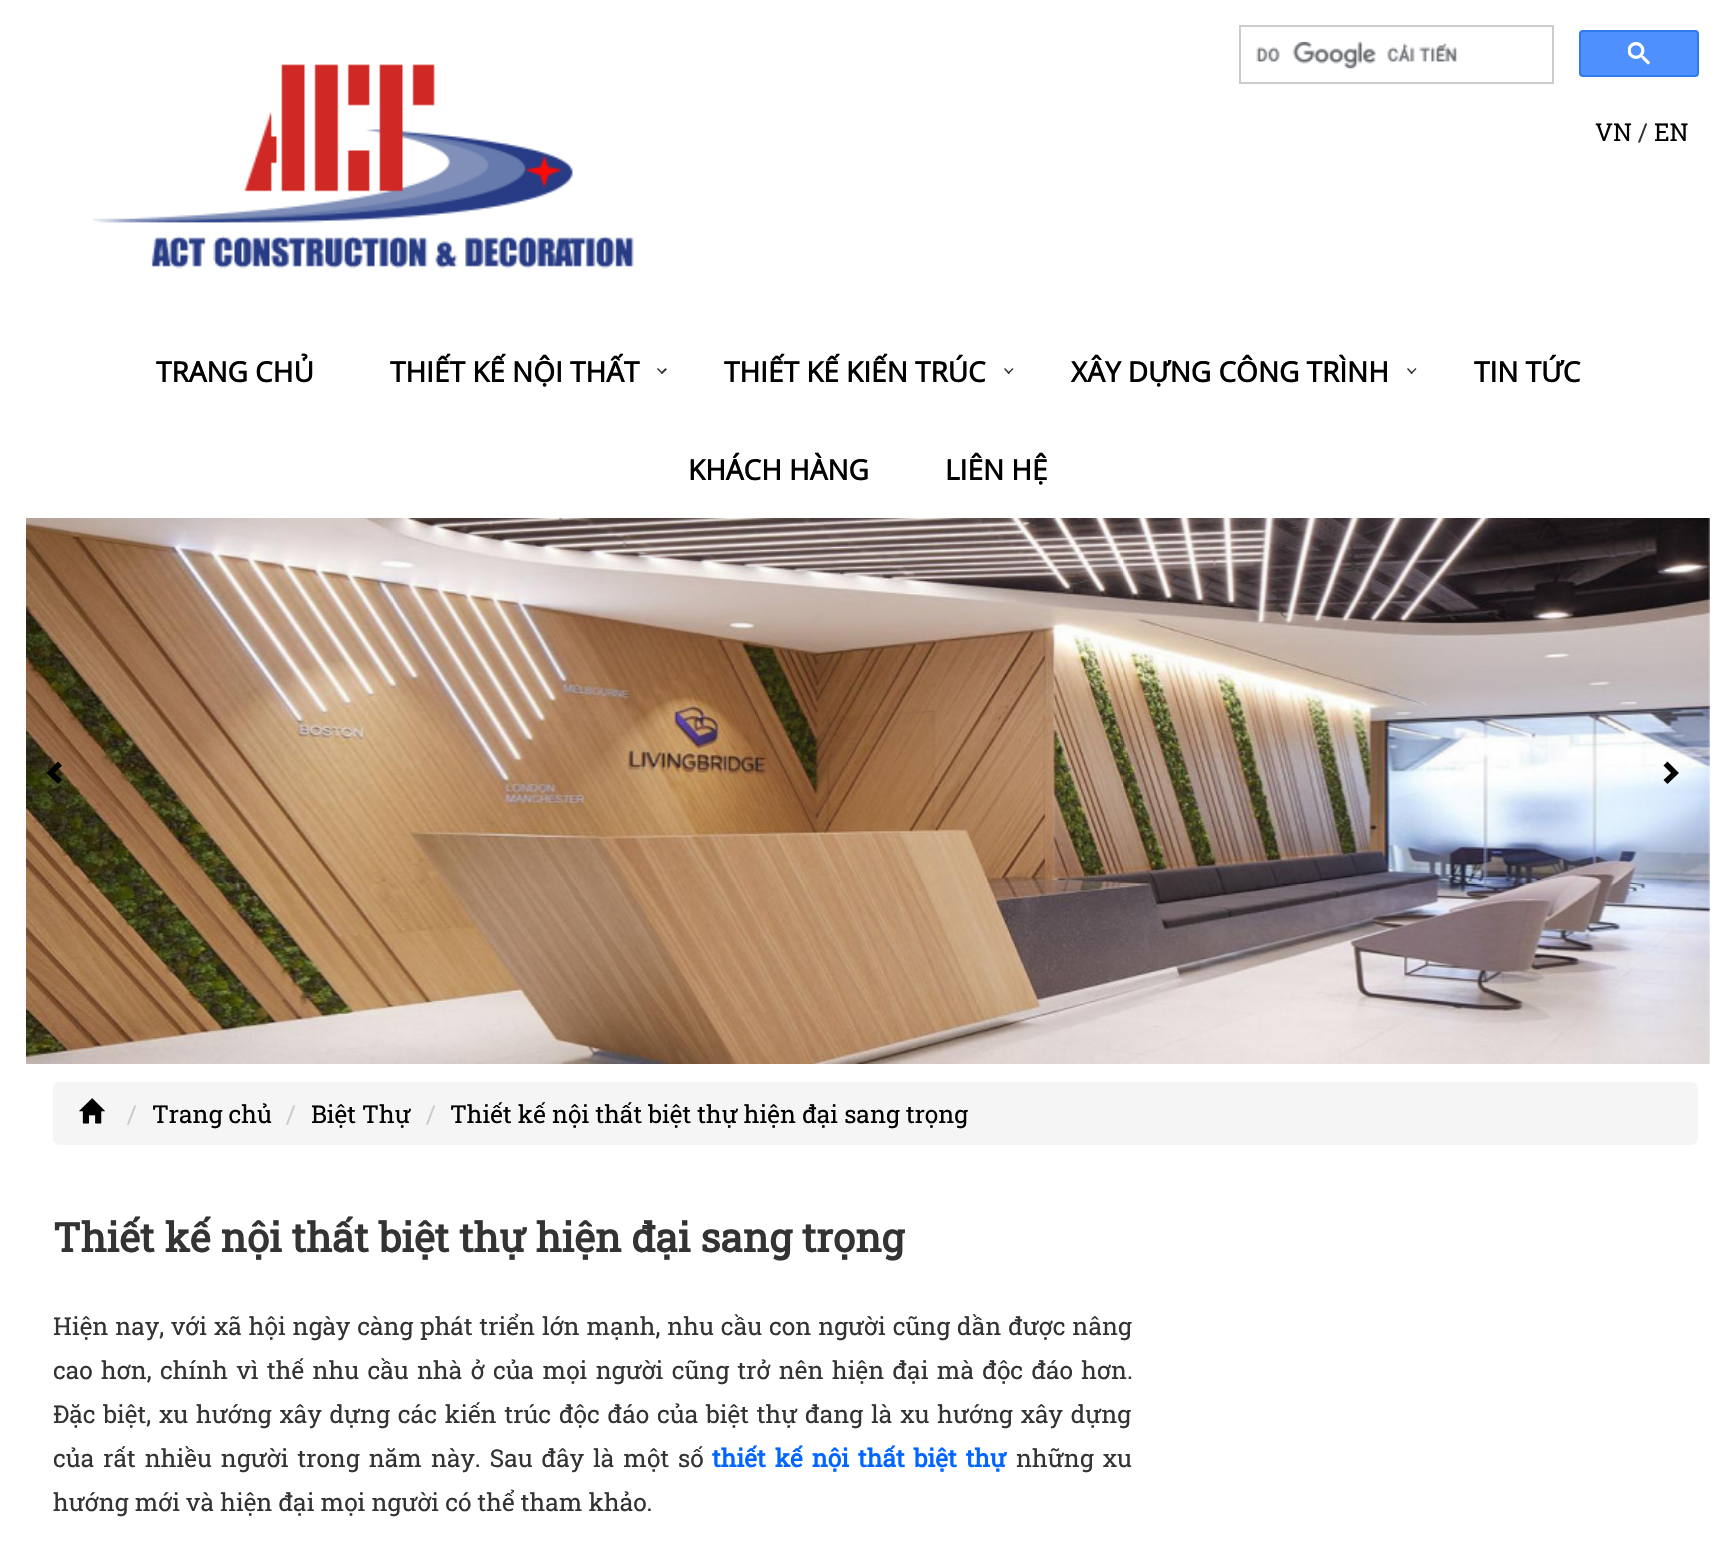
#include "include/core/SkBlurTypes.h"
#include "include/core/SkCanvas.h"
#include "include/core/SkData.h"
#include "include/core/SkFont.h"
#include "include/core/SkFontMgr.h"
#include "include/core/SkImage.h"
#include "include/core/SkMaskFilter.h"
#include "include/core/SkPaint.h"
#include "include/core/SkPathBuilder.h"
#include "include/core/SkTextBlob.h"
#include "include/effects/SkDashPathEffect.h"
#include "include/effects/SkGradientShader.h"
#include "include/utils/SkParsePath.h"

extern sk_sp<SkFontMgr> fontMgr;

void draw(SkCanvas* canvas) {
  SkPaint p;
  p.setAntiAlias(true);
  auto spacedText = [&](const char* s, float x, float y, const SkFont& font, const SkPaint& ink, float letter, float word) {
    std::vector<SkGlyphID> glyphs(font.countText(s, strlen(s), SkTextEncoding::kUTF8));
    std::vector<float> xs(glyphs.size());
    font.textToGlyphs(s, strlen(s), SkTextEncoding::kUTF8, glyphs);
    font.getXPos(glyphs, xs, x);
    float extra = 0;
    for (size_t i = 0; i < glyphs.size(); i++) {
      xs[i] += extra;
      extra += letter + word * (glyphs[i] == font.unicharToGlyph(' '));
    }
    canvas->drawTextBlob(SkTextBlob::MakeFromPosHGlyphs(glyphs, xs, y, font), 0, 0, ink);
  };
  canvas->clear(SK_ColorWHITE);
  canvas->drawImageRect(SkImages::DeferredFromEncodedData(SkData::MakeFromFileName("images/1.png")), SkRect::MakeLTRB(92, 64, 634, 269), SkSamplingOptions());
  p.setColor(SkColorSetRGB(204, 204, 204));
  canvas->drawRect(SkRect::MakeLTRB(1239, 25, 1554, 27), p);
  canvas->drawRect(SkRect::MakeLTRB(1552, 25, 1554, 84), p);
  canvas->drawRect(SkRect::MakeLTRB(1239, 82, 1554, 84), p);
  canvas->drawRect(SkRect::MakeLTRB(1239, 25, 1241, 84), p);
  canvas->drawImageRect(SkImages::DeferredFromEncodedData(SkData::MakeFromFileName("images/2.png")), SkRect::MakeLTRB(1256, 42, 1457, 69), SkSamplingOptions());
  p.setColor(SkColorSetRGB(77, 144, 254));
  canvas->drawRoundRect(SkRect::MakeLTRB(1580, 31, 1698, 76), 3, 3, p);
  p.setStyle(SkPaint::kStroke_Style);
  p.setStrokeWidth(2);
  p.setColor(SkColorSetRGB(48, 121, 237));
  canvas->drawRoundRect(SkRect::MakeLTRB(1580, 31, 1698, 76), 3, 3, p);
  canvas->drawImageRect(SkImages::DeferredFromEncodedData(SkData::MakeFromFileName("images/3.png")), SkRect::MakeLTRB(1628, 42, 1650, 65), SkSamplingOptions());
  p.setStyle(SkPaint::kFill_Style);
  p.setColor(SkColorSetRGB(51, 51, 51));
  canvas->drawPath(SkPathBuilder().moveTo(665.5f, 368).lineTo(667, 369.5f).lineTo(662, 374).lineTo(660.5f, 373).close().detach(), p);
  canvas->drawPath(SkPathBuilder().moveTo(658, 368).lineTo(663, 373).lineTo(662, 374).lineTo(657, 369).close().detach(), p);
  canvas->drawPath(SkPathBuilder().moveTo(1012.5f, 368).lineTo(1013.5f, 369).lineTo(1008.5f, 374).lineTo(1007.5f, 373).close().detach(), p);
  canvas->drawPath(SkPathBuilder().moveTo(1005, 368).lineTo(1010, 373).lineTo(1008.5f, 374).lineTo(1004, 369).close().detach(), p);
  canvas->drawPath(SkPathBuilder().moveTo(1415.5f, 368).lineTo(1416.5f, 369).lineTo(1411.5f, 374).lineTo(1410.5f, 373).close().detach(), p);
  canvas->drawPath(SkPathBuilder().moveTo(1408, 368).lineTo(1413, 373).lineTo(1411.5f, 374).lineTo(1407, 369).close().detach(), p);
  canvas->drawImageRect(SkImages::DeferredFromEncodedData(SkData::MakeFromFileName("images/4.png")), SkRect::MakeLTRB(26, 518, 1710, 1064), SkSamplingOptions());
  p.setColor(SK_ColorBLACK);
  canvas->drawPath(SkPathBuilder().moveTo(62, 765.5f).lineTo(54.5f, 773).lineTo(62, 780).lineTo(58, 784).lineTo(46.5f, 773).lineTo(58, 761.5f).close().detach(), p);
  canvas->drawPath(SkPathBuilder().moveTo(1679, 773).lineTo(1667.5f, 784).lineTo(1663.5f, 780).lineTo(1671, 773).lineTo(1663.5f, 765.5f).lineTo(1667.5f, 761.5f).close().detach(), p);
  p.setColor(SkColorSetRGB(245, 245, 245));
  canvas->drawRoundRect(SkRect::MakeLTRB(53, 1082, 1698, 1145), 7, 7, p);
  canvas->drawImageRect(SkImages::DeferredFromEncodedData(SkData::MakeFromFileName("images/5.png")), SkRect::MakeLTRB(79, 1098, 105, 1124), SkSamplingOptions());
  SkFont font1(fontMgr->matchFamilyStyle("Roboto Slab", SkFontStyle::Normal()), 24.5f);
  font1.setSubpixel(true);
  p.setColor(SK_ColorBLACK);
  canvas->drawString("VN", 1595, 141, font1, p);
  p.setColor(SkColorSetRGB(51, 51, 51));
  canvas->drawString("/", 1638, 141, font1, p);
  p.setColor(SK_ColorBLACK);
  canvas->drawString("EN", 1654, 141, font1, p);
  SkFont font2(fontMgr->matchFamilyStyle("Open Sans", SkFontStyle::Bold()), 28);
  font2.setSubpixel(true);
  canvas->drawString("TRANG CHỦ", 156, 382, font2, p);
  canvas->drawString("THIẾT KẾ NỘI THẤT", 390, 382, font2, p);
  canvas->drawString("THIẾT KẾ KIẾN TRÚC", 724, 382, font2, p);
  canvas->drawString("XÂY DỰNG CÔNG TRÌNH", 1071, 382, font2, p);
  canvas->drawString("TIN TỨC", 1474, 382, font2, p);
  canvas->drawString("KHÁCH HÀNG", 688, 480, font2, p);
  canvas->drawString("LIÊN HỆ", 945, 480, font2, p);
  p.setColor(SkColorSetRGB(204, 204, 204));
  canvas->drawString("/", 127, 1123, font1, p);
  p.setColor(SK_ColorBLACK);
  canvas->drawString("Trang chủ", 152, 1123, font1, p);
  p.setColor(SkColorSetRGB(204, 204, 204));
  canvas->drawString("/", 286, 1123, font1, p);
  p.setColor(SK_ColorBLACK);
  canvas->drawString("Biệt Thự", 311, 1123, font1, p);
  p.setColor(SkColorSetRGB(204, 204, 204));
  canvas->drawString("/", 426, 1123, font1, p);
  p.setColor(SK_ColorBLACK);
  canvas->drawString("Thiết kế nội thất biệt thự hiện đại sang trọng", 450, 1123, font1, p);
  SkFont font3(fontMgr->matchFamilyStyle("Roboto Slab", SkFontStyle::Bold()), 40.25f);
  font3.setSubpixel(true);
  p.setColor(SkColorSetRGB(51, 51, 51));
  canvas->drawString("Thiết kế nội thất biệt thự hiện đại sang trọng", 53, 1252, font3, p);
  spacedText("Hiện nay, với xã hội ngày càng phát triển lớn mạnh, nhu cầu con người cũng dần được nâng", 53, 1335, font1, p, 0, 0.8f);
  spacedText("cao hơn, chính vì thế nhu cầu nhà ở của mọi người cũng trở nên hiện đại mà độc đáo hơn.", 53, 1379, font1, p, 0, 2.25f);
  spacedText("Đặc biệt, xu hướng xây dựng các kiến trúc độc đáo của biệt thự đang là xu hướng xây dựng", 53, 1423, font1, p, 0, 1.75f);
  spacedText("của rất nhiều người trong năm này. Sau đây là một số", 53, 1467, font1, p, 0, 2.9f);
  SkFont font4(fontMgr->matchFamilyStyle("Roboto Slab", SkFontStyle::Bold()), 24.5f);
  font4.setSubpixel(true);
  p.setColor(SkColorSetRGB(0, 102, 255));
  spacedText("thiết kế nội thất biệt thự", 712, 1467, font4, p, 0, 2.9f);
  p.setColor(SkColorSetRGB(51, 51, 51));
  spacedText("những xu", 1016, 1467, font1, p, 0, 2.9f);
  canvas->drawString("hướng mới và hiện đại mọi người có thể tham khảo.", 53, 1511, font1, p);
}
